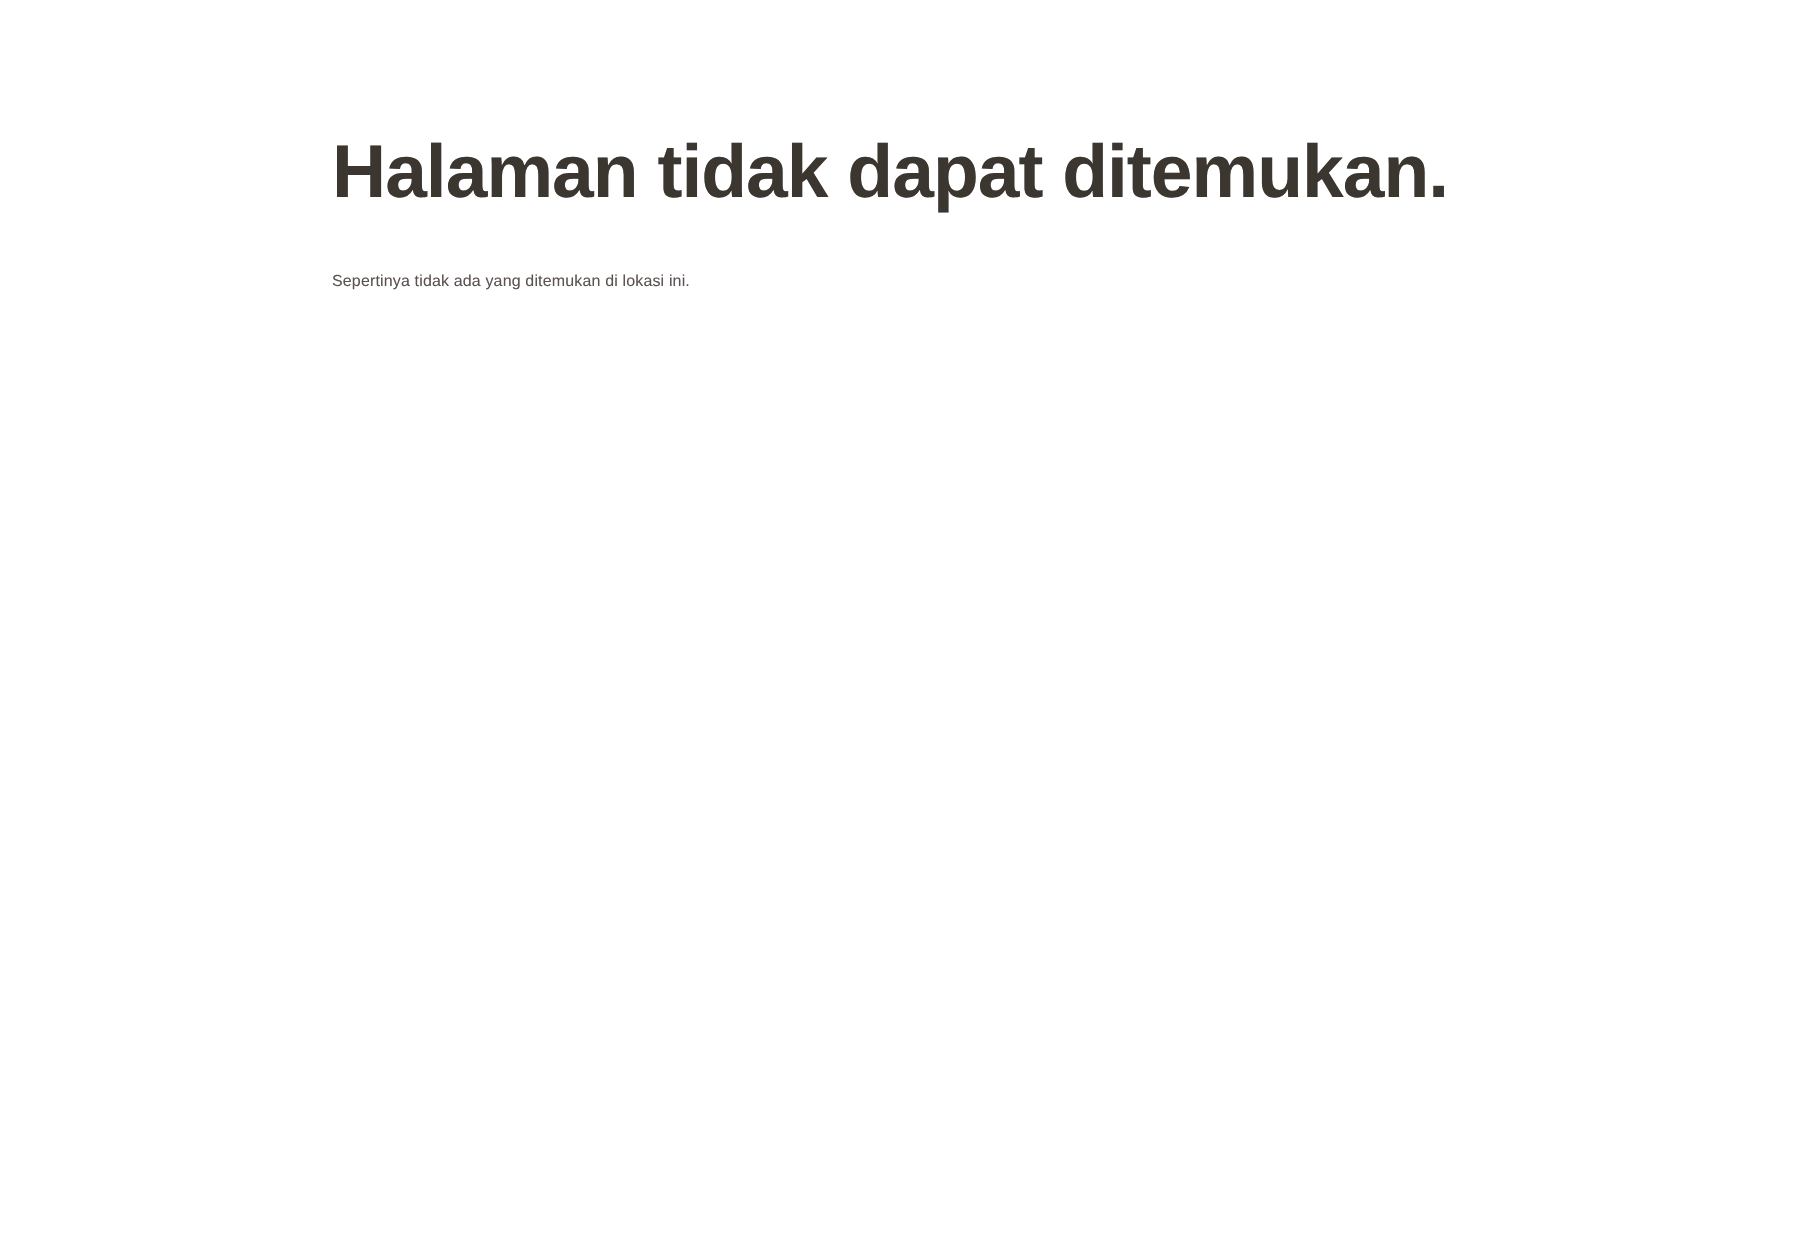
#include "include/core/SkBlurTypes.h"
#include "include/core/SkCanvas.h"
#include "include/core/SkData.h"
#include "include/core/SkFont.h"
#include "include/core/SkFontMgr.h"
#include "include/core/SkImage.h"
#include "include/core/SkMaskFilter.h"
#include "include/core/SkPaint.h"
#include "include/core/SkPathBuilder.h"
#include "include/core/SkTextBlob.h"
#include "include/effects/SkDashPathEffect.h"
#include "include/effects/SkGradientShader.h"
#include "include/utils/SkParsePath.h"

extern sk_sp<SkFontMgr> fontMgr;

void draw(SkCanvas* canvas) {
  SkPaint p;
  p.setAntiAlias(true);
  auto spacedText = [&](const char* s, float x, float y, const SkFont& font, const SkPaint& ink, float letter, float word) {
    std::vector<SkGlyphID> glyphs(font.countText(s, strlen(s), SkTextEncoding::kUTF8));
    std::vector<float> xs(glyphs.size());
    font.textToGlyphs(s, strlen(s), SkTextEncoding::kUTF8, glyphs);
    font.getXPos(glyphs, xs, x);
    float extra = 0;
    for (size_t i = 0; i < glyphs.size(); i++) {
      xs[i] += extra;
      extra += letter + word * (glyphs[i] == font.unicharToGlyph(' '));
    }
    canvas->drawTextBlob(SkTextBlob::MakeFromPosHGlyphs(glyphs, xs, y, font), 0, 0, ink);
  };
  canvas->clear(SK_ColorWHITE);
  SkFont font1(fontMgr->matchFamilyStyle("Liberation Sans", SkFontStyle::Bold()), 75);
  font1.setSubpixel(true);
  p.setColor(SkColorSetRGB(60, 54, 48));
  spacedText("Halaman tidak dapat ditemukan.", 332, 197, font1, p, -1, 0);
  SkFont font2(fontMgr->matchFamilyStyle("Liberation Sans", SkFontStyle::Normal()), 16);
  font2.setSubpixel(true);
  p.setColor(SkColorSetRGB(92, 83, 80));
  spacedText("Sepertinya tidak ada yang ditemukan di lokasi ini.", 332, 286, font2, p, 0.15f, 0);
}
